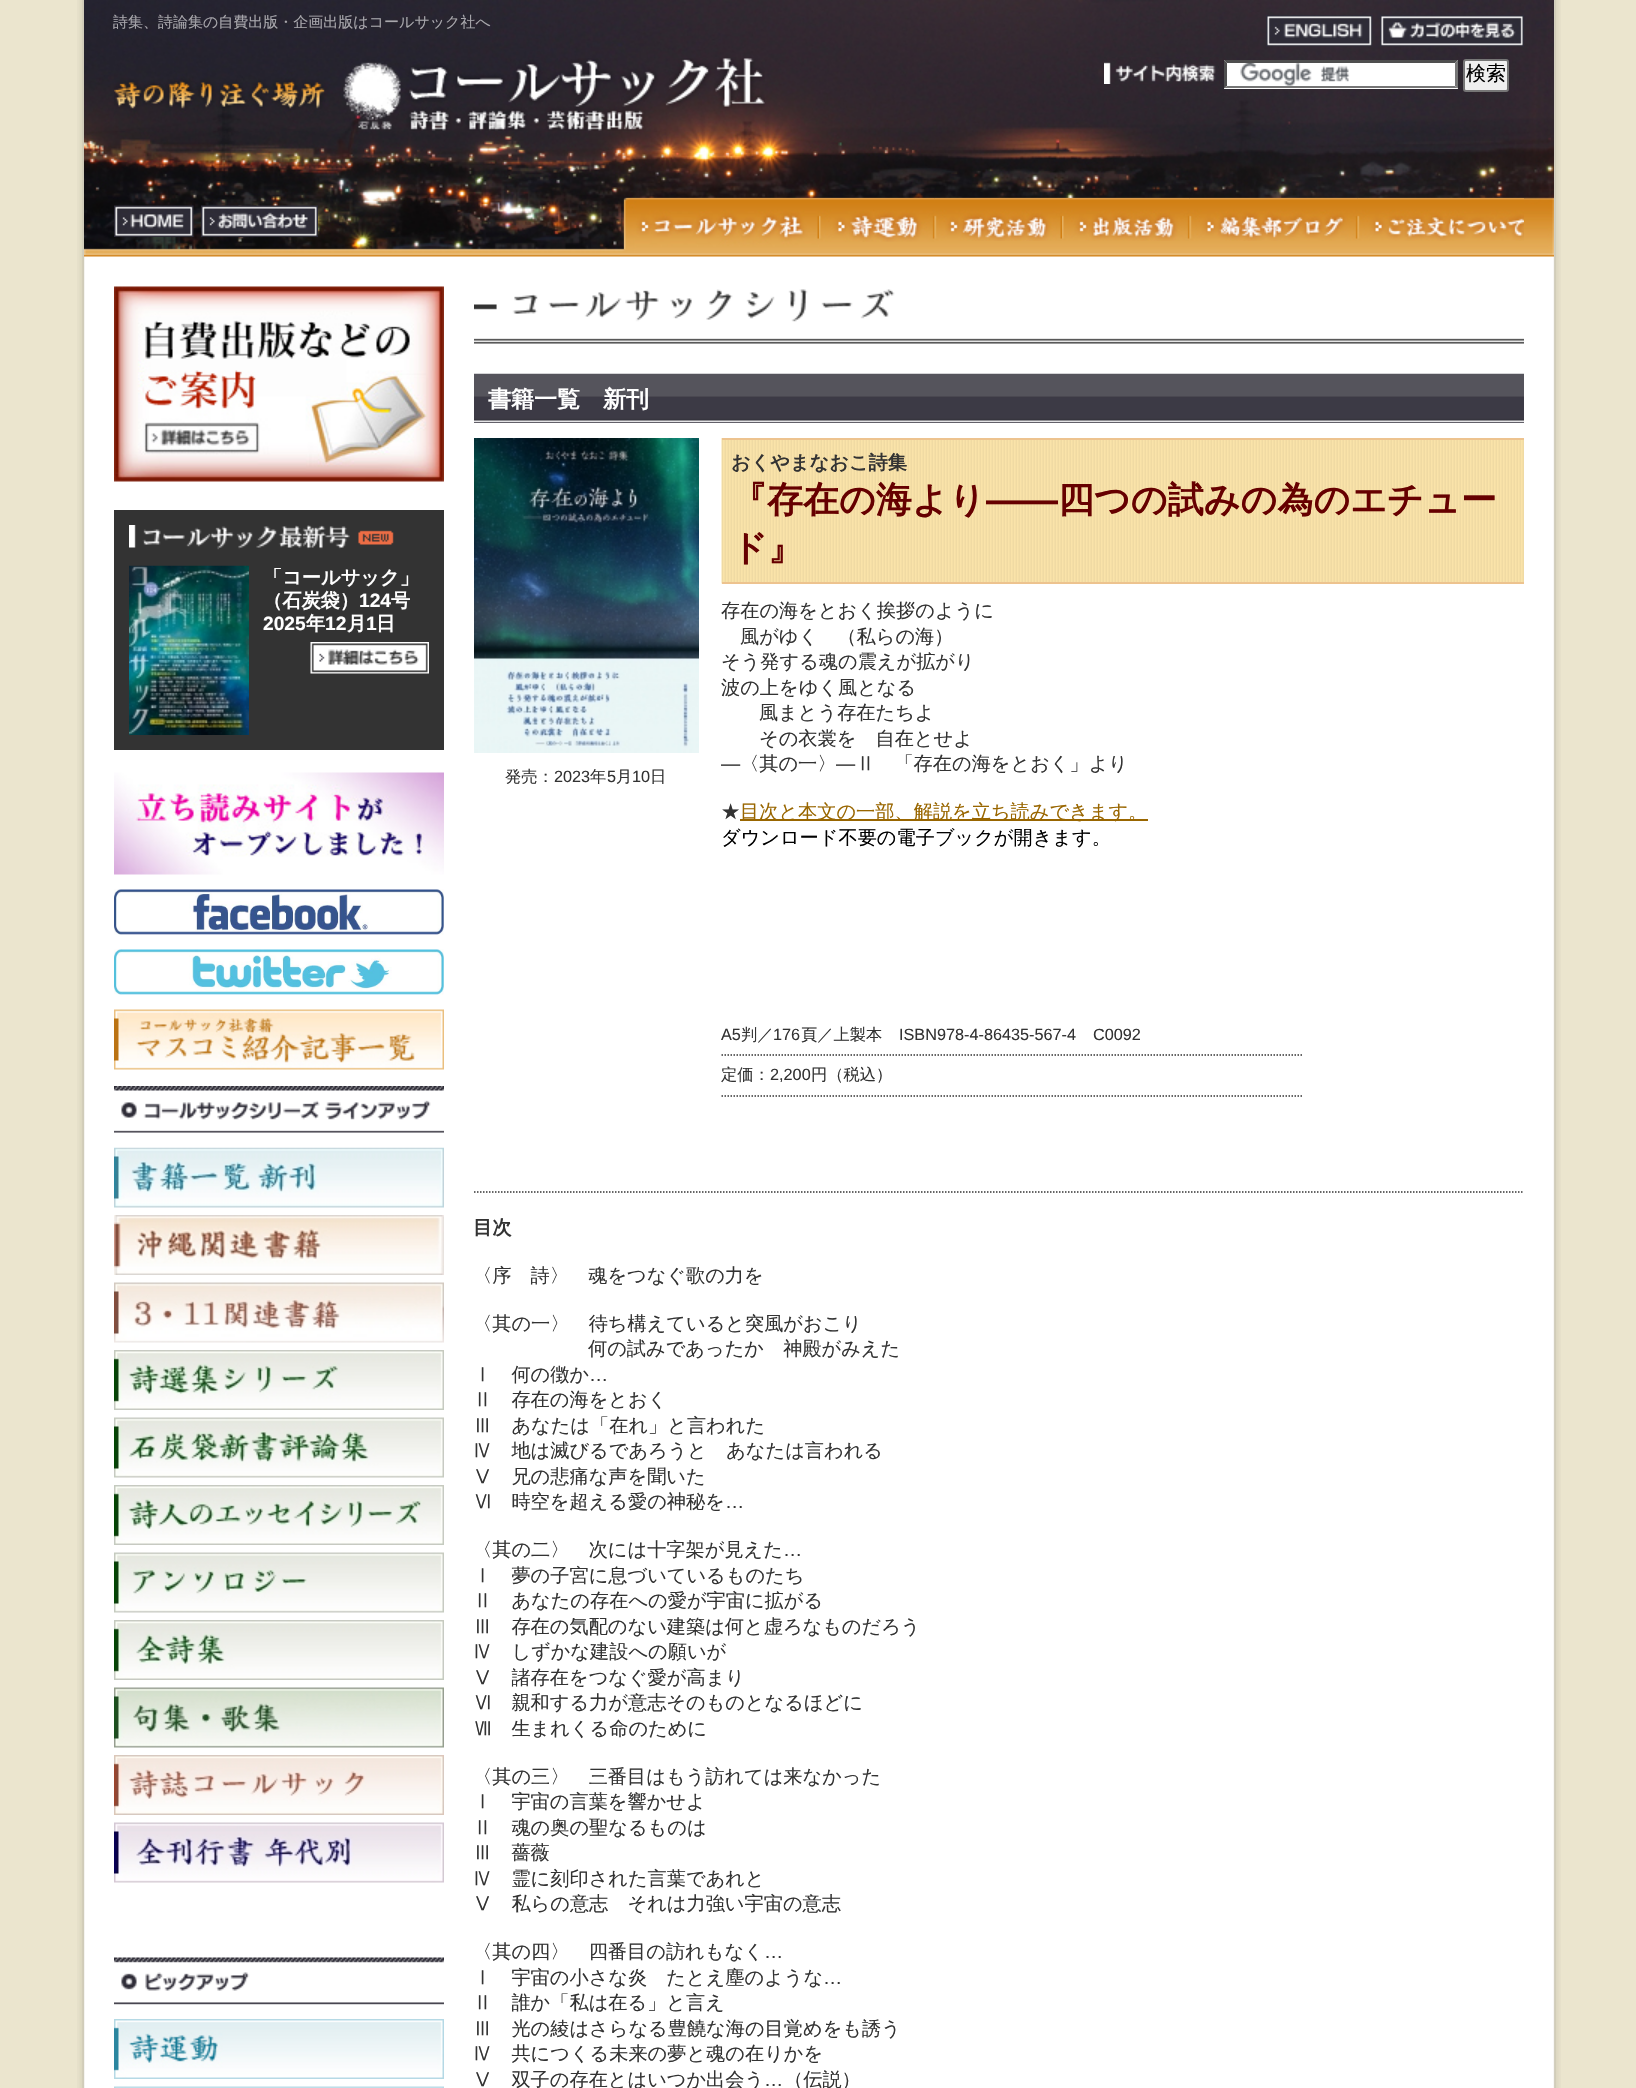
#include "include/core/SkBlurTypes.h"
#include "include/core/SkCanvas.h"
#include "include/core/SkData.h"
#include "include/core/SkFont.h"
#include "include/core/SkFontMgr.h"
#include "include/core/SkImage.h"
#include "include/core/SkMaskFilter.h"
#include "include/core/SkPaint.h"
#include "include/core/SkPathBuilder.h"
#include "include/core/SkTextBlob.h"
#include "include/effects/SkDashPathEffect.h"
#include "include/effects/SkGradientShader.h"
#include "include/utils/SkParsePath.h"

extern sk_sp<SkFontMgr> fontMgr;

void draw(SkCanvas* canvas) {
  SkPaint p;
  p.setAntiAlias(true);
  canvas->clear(SkColorSetRGB(235, 229, 206));
  canvas->drawImageRect(SkImages::DeferredFromEncodedData(SkData::MakeFromFileName("images/1.png")), SkRect::MakeLTRB(77, 0, 1561, 2088), SkSamplingOptions());
  canvas->drawImageRect(SkImages::DeferredFromEncodedData(SkData::MakeFromFileName("images/2.png")), SkRect::MakeLTRB(84, 0, 1554, 257), SkSamplingOptions());
  canvas->drawImageRect(SkImages::DeferredFromEncodedData(SkData::MakeFromFileName("images/3.png")), SkRect::MakeLTRB(114, 58, 765, 131), SkSamplingOptions());
  canvas->drawImageRect(SkImages::DeferredFromEncodedData(SkData::MakeFromFileName("images/4.png")), SkRect::MakeLTRB(1266, 15, 1373, 47), SkSamplingOptions());
  canvas->drawImageRect(SkImages::DeferredFromEncodedData(SkData::MakeFromFileName("images/5.png")), SkRect::MakeLTRB(1380, 15, 1524, 47), SkSamplingOptions());
  canvas->drawImageRect(SkImages::DeferredFromEncodedData(SkData::MakeFromFileName("images/6.png")), SkRect::MakeLTRB(1104, 57, 1219, 84), SkSamplingOptions());
  p.setColor(SK_ColorWHITE);
  canvas->drawRect(SkRect::MakeLTRB(1224, 60, 1458, 89), p);
  canvas->drawImageRect(SkImages::DeferredFromEncodedData(SkData::MakeFromFileName("images/7.png")), SkRect::MakeLTRB(1240, 63, 1350, 86), SkSamplingOptions());
  p.setColor(SkColorSetRGB(79, 79, 79));
  canvas->drawPath(SkPathBuilder().moveTo(1224, 60).lineTo(1458, 60).lineTo(1455, 63).lineTo(1227, 63).close().detach(), p);
  p.setColor(SkColorSetRGB(118, 118, 118));
  canvas->drawPath(SkPathBuilder().moveTo(1458, 60).lineTo(1458, 88.5f).lineTo(1455, 85.5f).lineTo(1455, 63).close().detach(), p);
  canvas->drawPath(SkPathBuilder().moveTo(1458, 88).lineTo(1224, 88).lineTo(1227, 86).lineTo(1455, 86).close().detach(), p);
  p.setColor(SkColorSetRGB(79, 79, 79));
  canvas->drawPath(SkPathBuilder().moveTo(1224, 88.5f).lineTo(1224, 60).lineTo(1227, 63).lineTo(1227, 85.5f).close().detach(), p);
  p.setColor(SkColorSetRGB(239, 239, 239));
  canvas->drawRoundRect(SkRect::MakeLTRB(1464, 60, 1508, 91), 2, 2, p);
  p.setStyle(SkPaint::kStroke_Style);
  p.setStrokeWidth(2);
  p.setColor(SkColorSetRGB(118, 118, 118));
  canvas->drawRoundRect(SkRect::MakeLTRB(1464, 60, 1508, 91), 2, 2, p);
  canvas->drawImageRect(SkImages::DeferredFromEncodedData(SkData::MakeFromFileName("images/8.png")), SkRect::MakeLTRB(114, 205, 194, 237), SkSamplingOptions());
  canvas->drawImageRect(SkImages::DeferredFromEncodedData(SkData::MakeFromFileName("images/9.png")), SkRect::MakeLTRB(201, 205, 318, 237), SkSamplingOptions());
  canvas->drawImageRect(SkImages::DeferredFromEncodedData(SkData::MakeFromFileName("images/10.png")), SkRect::MakeLTRB(624, 198, 819, 249), SkSamplingOptions());
  canvas->drawImageRect(SkImages::DeferredFromEncodedData(SkData::MakeFromFileName("images/11.png")), SkRect::MakeLTRB(819, 198, 935, 242), SkSamplingOptions());
  canvas->drawImageRect(SkImages::DeferredFromEncodedData(SkData::MakeFromFileName("images/12.png")), SkRect::MakeLTRB(934, 198, 1062, 241), SkSamplingOptions());
  canvas->drawImageRect(SkImages::DeferredFromEncodedData(SkData::MakeFromFileName("images/13.png")), SkRect::MakeLTRB(1062, 198, 1190, 241), SkSamplingOptions());
  canvas->drawImageRect(SkImages::DeferredFromEncodedData(SkData::MakeFromFileName("images/14.png")), SkRect::MakeLTRB(1189, 198, 1358, 241), SkSamplingOptions());
  canvas->drawImageRect(SkImages::DeferredFromEncodedData(SkData::MakeFromFileName("images/15.png")), SkRect::MakeLTRB(1357, 198, 1524, 241), SkSamplingOptions());
  canvas->drawImageRect(SkImages::DeferredFromEncodedData(SkData::MakeFromFileName("images/16.png")), SkRect::MakeLTRB(114, 286, 444, 482), SkSamplingOptions());
  p.setStyle(SkPaint::kFill_Style);
  p.setColor(SkColorSetRGB(51, 51, 51));
  canvas->drawRect(SkRect::MakeLTRB(114, 510, 444, 750), p);
  canvas->drawImageRect(SkImages::DeferredFromEncodedData(SkData::MakeFromFileName("images/18.png")), SkRect::MakeLTRB(129, 565, 249, 735), SkSamplingOptions());
  canvas->drawImageRect(SkImages::DeferredFromEncodedData(SkData::MakeFromFileName("images/17.png")), SkRect::MakeLTRB(129, 525, 394, 566), SkSamplingOptions());
  canvas->drawImageRect(SkImages::DeferredFromEncodedData(SkData::MakeFromFileName("images/19.png")), SkRect::MakeLTRB(310, 642, 429, 674), SkSamplingOptions());
  canvas->drawImageRect(SkImages::DeferredFromEncodedData(SkData::MakeFromFileName("images/20.png")), SkRect::MakeLTRB(114, 772, 444, 875), SkSamplingOptions());
  canvas->drawImageRect(SkImages::DeferredFromEncodedData(SkData::MakeFromFileName("images/21.png")), SkRect::MakeLTRB(114, 889, 444, 935), SkSamplingOptions());
  canvas->drawImageRect(SkImages::DeferredFromEncodedData(SkData::MakeFromFileName("images/22.png")), SkRect::MakeLTRB(114, 949, 444, 995), SkSamplingOptions());
  canvas->drawImageRect(SkImages::DeferredFromEncodedData(SkData::MakeFromFileName("images/23.png")), SkRect::MakeLTRB(114, 1009, 444, 1070), SkSamplingOptions());
  canvas->drawImageRect(SkImages::DeferredFromEncodedData(SkData::MakeFromFileName("images/25.png")), SkRect::MakeLTRB(114, 1147, 444, 1208), SkSamplingOptions());
  canvas->drawImageRect(SkImages::DeferredFromEncodedData(SkData::MakeFromFileName("images/24.png")), SkRect::MakeLTRB(114, 1086, 444, 1148), SkSamplingOptions());
  canvas->drawImageRect(SkImages::DeferredFromEncodedData(SkData::MakeFromFileName("images/26.png")), SkRect::MakeLTRB(114, 1215, 444, 1275), SkSamplingOptions());
  canvas->drawImageRect(SkImages::DeferredFromEncodedData(SkData::MakeFromFileName("images/27.png")), SkRect::MakeLTRB(114, 1282, 444, 1343), SkSamplingOptions());
  canvas->drawImageRect(SkImages::DeferredFromEncodedData(SkData::MakeFromFileName("images/28.png")), SkRect::MakeLTRB(114, 1350, 444, 1410), SkSamplingOptions());
  canvas->drawImageRect(SkImages::DeferredFromEncodedData(SkData::MakeFromFileName("images/29.png")), SkRect::MakeLTRB(114, 1417, 444, 1478), SkSamplingOptions());
  canvas->drawImageRect(SkImages::DeferredFromEncodedData(SkData::MakeFromFileName("images/30.png")), SkRect::MakeLTRB(114, 1485, 444, 1545), SkSamplingOptions());
  canvas->drawImageRect(SkImages::DeferredFromEncodedData(SkData::MakeFromFileName("images/31.png")), SkRect::MakeLTRB(114, 1552, 444, 1613), SkSamplingOptions());
  canvas->drawImageRect(SkImages::DeferredFromEncodedData(SkData::MakeFromFileName("images/32.png")), SkRect::MakeLTRB(114, 1620, 444, 1680), SkSamplingOptions());
  canvas->drawImageRect(SkImages::DeferredFromEncodedData(SkData::MakeFromFileName("images/33.png")), SkRect::MakeLTRB(114, 1687, 444, 1748), SkSamplingOptions());
  canvas->drawImageRect(SkImages::DeferredFromEncodedData(SkData::MakeFromFileName("images/34.png")), SkRect::MakeLTRB(114, 1755, 444, 1815), SkSamplingOptions());
  canvas->drawImageRect(SkImages::DeferredFromEncodedData(SkData::MakeFromFileName("images/35.png")), SkRect::MakeLTRB(114, 1822, 444, 1883), SkSamplingOptions());
  canvas->drawImageRect(SkImages::DeferredFromEncodedData(SkData::MakeFromFileName("images/36.png")), SkRect::MakeLTRB(114, 1957, 444, 2005), SkSamplingOptions());
  canvas->drawImageRect(SkImages::DeferredFromEncodedData(SkData::MakeFromFileName("images/37.png")), SkRect::MakeLTRB(114, 2019, 444, 2079), SkSamplingOptions());
  canvas->drawImageRect(SkImages::DeferredFromEncodedData(SkData::MakeFromFileName("images/38.png")), SkRect::MakeLTRB(114, 2086, 444, 2088), SkSamplingOptions());
  canvas->drawImageRect(SkImages::DeferredFromEncodedData(SkData::MakeFromFileName("images/40.png")), SkRect::MakeLTRB(474, 373, 1524, 423), SkSamplingOptions());
  canvas->drawImageRect(SkImages::DeferredFromEncodedData(SkData::MakeFromFileName("images/39.png")), SkRect::MakeLTRB(474, 289, 1524, 374), SkSamplingOptions());
  canvas->drawImageRect(SkImages::DeferredFromEncodedData(SkData::MakeFromFileName("images/41.png")), SkRect::MakeLTRB(474, 438, 699, 753), SkSamplingOptions());
  canvas->drawImageRect(SkImages::DeferredFromEncodedData(SkData::MakeFromFileName("images/42.png")), SkRect::MakeLTRB(721, 438, 1524, 584), SkSamplingOptions());
  p.setColor(SkColorSetRGB(237, 195, 143));
  canvas->drawRect(SkRect::MakeLTRB(722, 438, 1524, 440), p);
  canvas->drawRect(SkRect::MakeLTRB(722, 582, 1524, 584), p);
  p.setColor(SkColorSetRGB(153, 102, 0));
  canvas->drawRect(SkRect::MakeLTRB(740, 819, 1148, 821), p);
  p.setStyle(SkPaint::kStroke_Style);
  p.setStrokeWidth(1.5f);
  p.setColor(SkColorSetRGB(51, 51, 51));
  p.setPathEffect(SkDashPathEffect::Make({{1.5f, 1.5f}}, 0));
  canvas->drawPath(SkPathBuilder().moveTo(721.5f, 1055).lineTo(1303.5f, 1055).detach(), p);
  p.setPathEffect(nullptr);
  p.setPathEffect(SkDashPathEffect::Make({{1.5f, 1.5f}}, 0));
  canvas->drawPath(SkPathBuilder().moveTo(721.5f, 1096).lineTo(1303.5f, 1096).detach(), p);
  p.setPathEffect(nullptr);
  p.setPathEffect(SkDashPathEffect::Make({{1.5f, 1.5f}}, 0));
  canvas->drawPath(SkPathBuilder().moveTo(474, 1192).lineTo(1524, 1192).detach(), p);
  p.setPathEffect(nullptr);
  SkFont font1(fontMgr->matchFamilyStyle("WenQuanYi Zen Hei", SkFontStyle(500, SkFontStyle::kNormal_Width, SkFontStyle::kUpright_Slant)), 15);
  font1.setSubpixel(true);
  p.setStyle(SkPaint::kFill_Style);
  p.setColor(SkColorSetRGB(168, 167, 172));
  canvas->drawString("詩集、詩論集の自費出版・企画出版はコールサック社へ", 113, 27, font1, p);
  SkFont font2(fontMgr->matchFamilyStyle("WenQuanYi Zen Hei", SkFontStyle(500, SkFontStyle::kNormal_Width, SkFontStyle::kUpright_Slant)), 20);
  font2.setSubpixel(true);
  p.setColor(SK_ColorBLACK);
  canvas->drawString("検索", 1466, 80, font2, p);
  SkFont font3(fontMgr->matchFamilyStyle("WenQuanYi Zen Hei", SkFontStyle::Bold()), 19.2f);
  font3.setSubpixel(true);
  p.setColor(SK_ColorWHITE);
  canvas->drawString("「コールサック」", 263, 584, font3, p);
  canvas->drawString("（石炭袋）", 263, 607, font3, p);
  SkFont font4(fontMgr->matchFamilyStyle("Liberation Sans", SkFontStyle::Bold()), 19.2f);
  font4.setSubpixel(true);
  canvas->drawString("124", 359, 607, font4, p);
  canvas->drawString("号", 391, 607, font3, p);
  canvas->drawString("2025", 263, 630, font4, p);
  canvas->drawString("年", 306, 630, font3, p);
  canvas->drawString("12", 325, 630, font4, p);
  canvas->drawString("月", 347, 630, font3, p);
  canvas->drawString("1", 366, 630, font4, p);
  canvas->drawString("日", 376, 630, font3, p);
  SkFont font5(fontMgr->matchFamilyStyle("WenQuanYi Zen Hei", SkFontStyle::Bold()), 23);
  font5.setSubpixel(true);
  canvas->drawString("書籍一覧　新刊", 488, 407, font5, p);
  SkFont font6(fontMgr->matchFamilyStyle("WenQuanYi Zen Hei", SkFontStyle(500, SkFontStyle::kNormal_Width, SkFontStyle::kUpright_Slant)), 16.25f);
  font6.setSubpixel(true);
  p.setColor(SkColorSetRGB(51, 51, 51));
  canvas->drawString("発売：", 505, 782, font6, p);
  SkFont font7(fontMgr->matchFamilyStyle("Liberation Sans", SkFontStyle::Normal()), 16.25f);
  font7.setSubpixel(true);
  canvas->drawString("2023", 554, 782, font7, p);
  canvas->drawString("年", 590, 782, font6, p);
  canvas->drawString("5", 607, 782, font7, p);
  canvas->drawString("月", 616, 782, font6, p);
  canvas->drawString("10", 632, 782, font7, p);
  canvas->drawString("日", 650, 782, font6, p);
  canvas->drawString("おくやまなおこ詩集", 731, 469, font3, p);
  SkFont font8(fontMgr->matchFamilyStyle("WenQuanYi Zen Hei", SkFontStyle::Bold()), 36);
  font8.setSubpixel(true);
  p.setColor(SkColorSetRGB(102, 0, 0));
  canvas->drawString("『存在の海より", 731, 512, font8, p);
  SkFont font9(fontMgr->matchFamilyStyle("Liberation Sans", SkFontStyle::Bold()), 36);
  font9.setSubpixel(true);
  canvas->drawString("――", 986, 512, font9, p);
  canvas->drawString("四つの試みの為のエチュー", 1058, 512, font8, p);
  canvas->drawString("ド』", 731, 560, font8, p);
  SkFont font10(fontMgr->matchFamilyStyle("WenQuanYi Zen Hei", SkFontStyle(500, SkFontStyle::kNormal_Width, SkFontStyle::kUpright_Slant)), 19.2f);
  font10.setSubpixel(true);
  p.setColor(SkColorSetRGB(51, 51, 51));
  canvas->drawString("存在の海をとおく挨拶のように", 721, 617, font10, p);
  canvas->drawString("風がゆく　（私らの海）", 740, 643, font10, p);
  canvas->drawString("そう発する魂の震えが拡がり", 721, 668, font10, p);
  canvas->drawString("波の上をゆく風となる", 721, 694, font10, p);
  canvas->drawString("風まとう存在たちよ", 759, 719, font10, p);
  canvas->drawString("その衣裳を　自在とせよ", 759, 745, font10, p);
  SkFont font11(fontMgr->matchFamilyStyle("Liberation Sans", SkFontStyle::Normal()), 19.2f);
  font11.setSubpixel(true);
  canvas->drawString("―", 721, 770, font11, p);
  canvas->drawString("〈其の一〉", 740, 770, font10, p);
  canvas->drawString("―", 836, 770, font11, p);
  canvas->drawString("Ⅱ　「存在の海をとおく」より", 856, 770, font10, p);
  canvas->drawString("★", 721, 818, font10, p);
  p.setColor(SkColorSetRGB(153, 102, 0));
  canvas->drawString("目次と本文の一部、解説を立ち読みできます。", 740, 818, font10, p);
  p.setColor(SK_ColorBLACK);
  canvas->drawString("ダウンロード不要の電子ブックが開きます。", 721, 844, font10, p);
  p.setColor(SkColorSetRGB(51, 51, 51));
  canvas->drawString("A5", 721, 1040, font7, p);
  canvas->drawString("判／", 741, 1040, font6, p);
  canvas->drawString("176", 773, 1040, font7, p);
  canvas->drawString("頁／上製本", 801, 1040, font6, p);
  canvas->drawString("ISBN978-4-86435-567-4", 899, 1040, font7, p);
  canvas->drawString("C0092", 1093, 1040, font7, p);
  canvas->drawString("定価：", 721, 1080, font6, p);
  canvas->drawString("2,200", 770, 1080, font7, p);
  canvas->drawString("円（税込）", 811, 1080, font6, p);
  canvas->drawString("目次", 473, 1234, font3, p);
  canvas->drawString("〈序　詩〉　魂をつなぐ歌の力を", 473, 1282, font10, p);
  canvas->drawString("〈其の一〉　待ち構えていると突風がおこり", 473, 1330, font10, p);
  canvas->drawString("何の試みであったか　神殿がみえた", 588, 1355, font10, p);
  canvas->drawString("Ⅰ　何の徴か", 473, 1381, font10, p);
  canvas->drawString("…", 589, 1381, font11, p);
  canvas->drawString("Ⅱ　存在の海をとおく", 473, 1406, font10, p);
  canvas->drawString("Ⅲ　あなたは「在れ」と言われた", 473, 1432, font10, p);
  canvas->drawString("Ⅳ　地は滅びるであろうと　あなたは言われる", 473, 1457, font10, p);
  canvas->drawString("Ⅴ　兄の悲痛な声を聞いた", 473, 1483, font10, p);
  canvas->drawString("Ⅵ　時空を超える愛の神秘を", 473, 1508, font10, p);
  canvas->drawString("…", 725, 1508, font11, p);
  canvas->drawString("〈其の二〉　次には十字架が見えた", 473, 1556, font10, p);
  canvas->drawString("…", 783, 1556, font11, p);
  canvas->drawString("Ⅰ　夢の子宮に息づいているものたち", 473, 1582, font10, p);
  canvas->drawString("Ⅱ　あなたの存在への愛が宇宙に拡がる", 473, 1607, font10, p);
  canvas->drawString("Ⅲ　存在の気配のない建築は何と虚ろなものだろう", 473, 1633, font10, p);
  canvas->drawString("Ⅳ　しずかな建設への願いが", 473, 1658, font10, p);
  canvas->drawString("Ⅴ　諸存在をつなぐ愛が高まり", 473, 1684, font10, p);
  canvas->drawString("Ⅵ　親和する力が意志そのものとなるほどに", 473, 1709, font10, p);
  canvas->drawString("Ⅶ　生まれくる命のために", 473, 1735, font10, p);
  canvas->drawString("〈其の三〉　三番目はもう訪れては来なかった", 473, 1783, font10, p);
  canvas->drawString("Ⅰ　宇宙の言葉を響かせよ", 473, 1808, font10, p);
  canvas->drawString("Ⅱ　魂の奥の聖なるものは", 473, 1834, font10, p);
  canvas->drawString("Ⅲ　薔薇", 473, 1859, font10, p);
  canvas->drawString("Ⅳ　霊に刻印された言葉であれと", 473, 1885, font10, p);
  canvas->drawString("Ⅴ　私らの意志　それは力強い宇宙の意志", 473, 1910, font10, p);
  canvas->drawString("〈其の四〉　四番目の訪れもなく", 473, 1958, font10, p);
  canvas->drawString("…", 764, 1958, font11, p);
  canvas->drawString("Ⅰ　宇宙の小さな炎　たとえ塵のような", 473, 1984, font10, p);
  canvas->drawString("…", 823, 1984, font11, p);
  canvas->drawString("Ⅱ　誰か「私は在る」と言え", 473, 2009, font10, p);
  canvas->drawString("Ⅲ　光の綾はさらなる豊饒な海の目覚めをも誘う", 473, 2035, font10, p);
  canvas->drawString("Ⅳ　共につくる未来の夢と魂の在りかを", 473, 2060, font10, p);
  canvas->drawString("Ⅴ　双子の存在とはいつか出会う", 473, 2086, font10, p);
  canvas->drawString("…", 764, 2086, font11, p);
  canvas->drawString("（伝説）", 784, 2086, font10, p);
}
